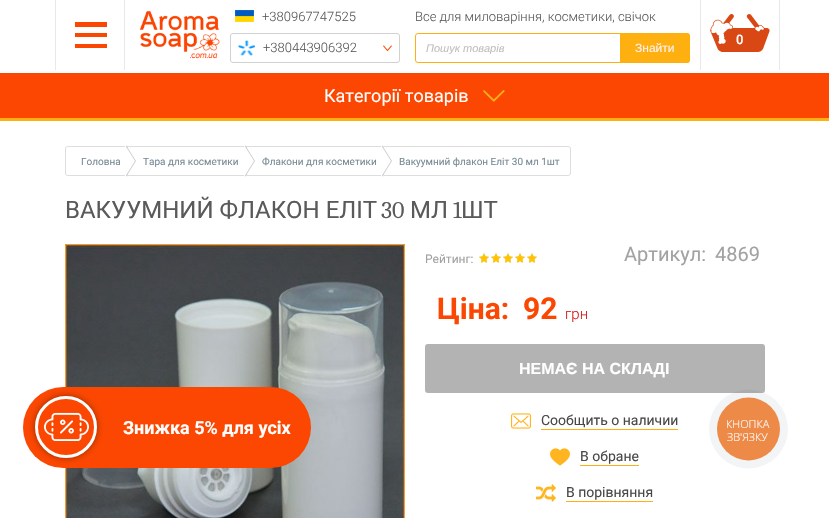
#include "include/core/SkBlurTypes.h"
#include "include/core/SkCanvas.h"
#include "include/core/SkData.h"
#include "include/core/SkFont.h"
#include "include/core/SkFontMgr.h"
#include "include/core/SkImage.h"
#include "include/core/SkMaskFilter.h"
#include "include/core/SkPaint.h"
#include "include/core/SkPathBuilder.h"
#include "include/core/SkTextBlob.h"
#include "include/effects/SkDashPathEffect.h"
#include "include/effects/SkGradientShader.h"
#include "include/utils/SkParsePath.h"

extern sk_sp<SkFontMgr> fontMgr;

void draw(SkCanvas* canvas) {
  SkPaint p;
  p.setAntiAlias(true);
  canvas->clear(SK_ColorWHITE);
  p.setColor(SkColorSetRGB(232, 232, 232));
  canvas->drawRect(SkRect::MakeLTRB(124, 0, 125, 70), p);
  canvas->drawRect(SkRect::MakeLTRB(55, 0, 56, 70), p);
  p.setColor(SkColorSetRGB(251, 71, 1));
  canvas->drawRect(SkRect::MakeLTRB(75, 44, 107, 48), p);
  canvas->drawRect(SkRect::MakeLTRB(75, 33, 107, 37), p);
  canvas->drawRect(SkRect::MakeLTRB(75, 22, 107, 27), p);
  canvas->drawImageRect(SkImages::DeferredFromEncodedData(SkData::MakeFromFileName("images/1.png")), SkRect::MakeLTRB(140, 11, 220, 59), SkSamplingOptions());
  canvas->drawImageRect(SkImages::DeferredFromEncodedData(SkData::MakeFromFileName("images/2.png")), SkRect::MakeLTRB(235, 10, 254, 22), SkSamplingOptions());
  p.setStyle(SkPaint::kStroke_Style);
  p.setStrokeWidth(1);
  p.setColor(SkColorSetRGB(209, 209, 209));
  canvas->drawRoundRect(SkRect::MakeLTRB(230.5f, 33.5f, 399.5f, 62.5f), 2.5f, 2.5f, p);
  canvas->drawImageRect(SkImages::DeferredFromEncodedData(SkData::MakeFromFileName("images/3.png")), SkRect::MakeLTRB(238, 40, 255, 56), SkSamplingOptions());
  canvas->drawImageRect(SkImages::DeferredFromEncodedData(SkData::MakeFromFileName("images/4.png")), SkRect::MakeLTRB(383, 45, 392, 51), SkSamplingOptions());
  p.setColor(SkColorSetRGB(255, 176, 17));
  canvas->drawRoundRect(SkRect::MakeLTRB(415.5f, 33.5f, 689.5f, 62.5f), 2.5f, 2.5f, p);
  p.setStyle(SkPaint::kFill_Style);
  canvas->drawPath(SkPathBuilder().moveTo(620, 33).lineTo(687, 33).cubicTo(688.5f, 33, 690, 34.5f, 690, 36).lineTo(690, 60).cubicTo(690, 61.5f, 688.5f, 63, 687, 63).lineTo(620, 63).close().detach(), p);
  p.setColor(SkColorSetRGB(232, 232, 232));
  canvas->drawRect(SkRect::MakeLTRB(779, 0, 780, 70), p);
  canvas->drawRect(SkRect::MakeLTRB(700, 0, 701, 70), p);
  canvas->drawImageRect(SkImages::DeferredFromEncodedData(SkData::MakeFromFileName("images/5.png")), SkRect::MakeLTRB(710, 14, 770, 52), SkSamplingOptions());
  p.setColor(SkColorSetRGB(251, 71, 1));
  canvas->drawRect(SkRect::MakeLTRB(0, 73, 829, 118), p);
  p.setColor(SkColorSetRGB(255, 176, 17));
  canvas->drawRect(SkRect::MakeLTRB(0, 118, 829, 121), p);
  canvas->drawImageRect(SkImages::DeferredFromEncodedData(SkData::MakeFromFileName("images/6.png")), SkRect::MakeLTRB(483, 90, 505, 102), SkSamplingOptions());
  p.setStyle(SkPaint::kStroke_Style);
  p.setColor(SkColorSetRGB(221, 221, 221));
  canvas->drawPath(SkPathBuilder().moveTo(68, 146.5f).lineTo(125.5f, 146.5f).lineTo(125.5f, 175.5f).lineTo(68, 175.5f).cubicTo(66.5f, 175.5f, 65.5f, 174.5f, 65.5f, 173).lineTo(65.5f, 149).cubicTo(65.5f, 147.5f, 66.5f, 146.5f, 68, 146.5f).close().detach(), p);
  canvas->drawRect(SkRect::MakeLTRB(127.5f, 146.5f, 244.5f, 175.5f), p);
  p.setStyle(SkPaint::kFill_Style);
  p.setColor(SkColorSetRGB(204, 204, 204));
  canvas->drawPath(SkPathBuilder().moveTo(126, 177).lineTo(126, 145).lineTo(136, 161).close().detach(), p);
  p.setColor(SK_ColorWHITE);
  canvas->drawPath(SkPathBuilder().moveTo(125, 177).lineTo(125, 145).lineTo(135, 161).close().detach(), p);
  p.setStyle(SkPaint::kStroke_Style);
  p.setColor(SkColorSetRGB(221, 221, 221));
  canvas->drawRect(SkRect::MakeLTRB(246.5f, 146.5f, 381.5f, 175.5f), p);
  p.setStyle(SkPaint::kFill_Style);
  p.setColor(SkColorSetRGB(204, 204, 204));
  canvas->drawPath(SkPathBuilder().moveTo(245, 177).lineTo(245, 145).lineTo(255, 161).close().detach(), p);
  p.setColor(SK_ColorWHITE);
  canvas->drawPath(SkPathBuilder().moveTo(244, 177).lineTo(244, 145).lineTo(254, 161).close().detach(), p);
  p.setStyle(SkPaint::kStroke_Style);
  p.setColor(SkColorSetRGB(221, 221, 221));
  canvas->drawPath(SkPathBuilder().moveTo(383.5f, 146.5f).lineTo(568, 146.5f).cubicTo(569.5f, 146.5f, 570.5f, 147.5f, 570.5f, 149).lineTo(570.5f, 173).cubicTo(570.5f, 174.5f, 569.5f, 175.5f, 568, 175.5f).lineTo(383.5f, 175.5f).close().detach(), p);
  p.setStyle(SkPaint::kFill_Style);
  p.setColor(SkColorSetRGB(204, 204, 204));
  canvas->drawPath(SkPathBuilder().moveTo(382, 177).lineTo(382, 145).lineTo(392, 161).close().detach(), p);
  p.setColor(SK_ColorWHITE);
  canvas->drawPath(SkPathBuilder().moveTo(381, 177).lineTo(381, 145).lineTo(391, 161).close().detach(), p);
  canvas->drawImageRect(SkImages::DeferredFromEncodedData(SkData::MakeFromFileName("images/7.png")), SkRect::MakeLTRB(65, 244, 405, 518), SkSamplingOptions());
  canvas->drawImageRect(SkImages::DeferredFromEncodedData(SkData::MakeFromFileName("images/8.png")), SkRect::MakeLTRB(479, 253, 537, 263), SkSamplingOptions());
  canvas->drawImageRect(SkImages::DeferredFromEncodedData(SkData::MakeFromFileName("images/9.png")), SkRect::MakeLTRB(479, 253, 537, 263), SkSamplingOptions());
  p.setColor(SkColorSetRGB(179, 179, 179));
  canvas->drawRoundRect(SkRect::MakeLTRB(425, 344, 765, 393), 3, 3, p);
  canvas->drawImageRect(SkImages::DeferredFromEncodedData(SkData::MakeFromFileName("images/10.png")), SkRect::MakeLTRB(511, 413, 531, 429), SkSamplingOptions());
  p.setColor(SkColorSetRGB(255, 176, 17));
  canvas->drawRect(SkRect::MakeLTRB(541, 429, 678, 430), p);
  canvas->drawImageRect(SkImages::DeferredFromEncodedData(SkData::MakeFromFileName("images/11.png")), SkRect::MakeLTRB(550, 448, 570, 466), SkSamplingOptions());
  canvas->drawRect(SkRect::MakeLTRB(580, 465, 639, 466), p);
  canvas->drawImageRect(SkImages::DeferredFromEncodedData(SkData::MakeFromFileName("images/12.png")), SkRect::MakeLTRB(536, 484, 556, 502), SkSamplingOptions());
  canvas->drawRect(SkRect::MakeLTRB(566, 501, 653, 502), p);
  p.setColor(SkColorSetRGB(251, 71, 1));
  canvas->drawRoundRect(SkRect::MakeLTRB(23, 387, 311, 468), 40.5f, 40.5f, p);
  p.setColor(SkColorSetARGB(102, 0, 0, 0));
  p.setMaskFilter(SkMaskFilter::MakeBlur(kNormal_SkBlurStyle, 3));
  canvas->drawRoundRect(SkRect::MakeLTRB(35, 396, 97, 458), 31, 31, p);
  p.setMaskFilter(nullptr);
  p.setColor(SkColorSetRGB(251, 71, 1));
  canvas->drawCircle(66, 427, 29.5f, p);
  p.setStyle(SkPaint::kStroke_Style);
  p.setStrokeWidth(3);
  p.setColor(SK_ColorWHITE);
  canvas->drawCircle(66, 427, 29.5f, p);
  canvas->drawImageRect(SkImages::DeferredFromEncodedData(SkData::MakeFromFileName("images/13.png")), SkRect::MakeLTRB(44, 412, 89, 441), SkSamplingOptions());
  p.setStyle(SkPaint::kFill_Style);
  p.setColor(SkColorSetARGB(15, 42, 64, 93));
  canvas->drawCircle(748.5f, 429, 39.5f, p);
  p.setColor(SkColorSetRGB(237, 138, 71));
  canvas->drawCircle(748.5f, 429, 31.5f, p);
  SkFont font1(fontMgr->matchFamilyStyle("Roboto", SkFontStyle(300, SkFontStyle::kNormal_Width, SkFontStyle::kUpright_Slant)), 13);
  font1.setSubpixel(true);
  p.setColor(SkColorSetRGB(90, 90, 90));
  canvas->drawString("+380967747525", 262, 21, font1, p);
  canvas->drawString("+380443906392", 263, 52, font1, p);
  canvas->drawString("Все для миловаріння, косметики, свічок", 415, 21, font1, p);
  canvas->save();
  canvas->clipRect(SkRect::MakeLTRB(426, 42, 624, 54));
  SkFont font2(fontMgr->matchFamilyStyle("Liberation Sans", SkFontStyle::Italic()), 11);
  font2.setSubpixel(true);
  p.setColor(SkColorSetRGB(191, 191, 191));
  canvas->drawString("Пошук товарів", 426, 52, font2, p);
  canvas->restore();
  SkFont font3(fontMgr->matchFamilyStyle("Liberation Sans", SkFontStyle::Normal()), 12);
  font3.setSubpixel(true);
  p.setColor(SkColorSetRGB(255, 241, 242));
  canvas->drawString("Знайти", 635, 52, font3, p);
  SkFont font4(fontMgr->matchFamilyStyle("Roboto", SkFontStyle(500, SkFontStyle::kNormal_Width, SkFontStyle::kUpright_Slant)), 13);
  font4.setSubpixel(true);
  p.setColor(SK_ColorWHITE);
  canvas->drawString("0", 736, 44, font4, p);
  SkFont font5(fontMgr->matchFamilyStyle("Roboto", SkFontStyle::Normal()), 18);
  font5.setSubpixel(true);
  canvas->drawString("Категорії товарів", 324, 102, font5, p);
  SkFont font6(fontMgr->matchFamilyStyle("Roboto", SkFontStyle::Normal()), 10);
  font6.setSubpixel(true);
  p.setColor(SkColorSetRGB(119, 138, 148));
  canvas->drawString("Головна", 81, 165, font6, p);
  canvas->drawString("Тара для косметики", 143, 165, font6, p);
  canvas->drawString("Флакони для косметики", 262, 165, font6, p);
  canvas->drawString("Вакуумний флакон Еліт 30 мл 1шт", 399, 165, font6, p);
  SkFont font7(fontMgr->matchFamilyStyle("Roboto", SkFontStyle::Normal()), 24);
  font7.setSubpixel(true);
  p.setColor(SkColorSetRGB(90, 90, 90));
  canvas->drawString("ВАКУУМНИЙ ФЛАКОН ЕЛІТ", 65, 218, font7, p);
  SkFont font8(fontMgr->matchFamilyStyle("Caladea", SkFontStyle::Normal()), 24);
  font8.setSubpixel(true);
  canvas->drawString("30", 381, 218, font8, p);
  canvas->drawString("МЛ", 410, 218, font7, p);
  canvas->drawString("1", 453, 218, font8, p);
  canvas->drawString("ШТ", 461, 218, font7, p);
  SkFont font9(fontMgr->matchFamilyStyle("Roboto", SkFontStyle::Normal()), 12);
  font9.setSubpixel(true);
  p.setColor(SkColorSetRGB(162, 162, 162));
  canvas->drawString("Рейтинг:", 425, 263, font9, p);
  SkFont font10(fontMgr->matchFamilyStyle("Roboto", SkFontStyle::Normal()), 20);
  font10.setSubpixel(true);
  canvas->drawString("Артикул:", 624, 261, font10, p);
  canvas->drawString("4869", 715, 261, font10, p);
  SkFont font11(fontMgr->matchFamilyStyle("Roboto", SkFontStyle::Bold()), 30);
  font11.setSubpixel(true);
  p.setColor(SkColorSetRGB(251, 71, 1));
  canvas->drawString("Ціна:", 437, 319, font11, p);
  canvas->drawString("92", 523, 319, font11, p);
  SkFont font12(fontMgr->matchFamilyStyle("Roboto", SkFontStyle(300, SkFontStyle::kNormal_Width, SkFontStyle::kUpright_Slant)), 15);
  font12.setSubpixel(true);
  p.setColor(SkColorSetRGB(211, 25, 25));
  canvas->drawString("грн", 565, 319, font12, p);
  SkFont font13(fontMgr->matchFamilyStyle("Liberation Sans", SkFontStyle::Bold()), 16);
  font13.setSubpixel(true);
  p.setColor(SK_ColorWHITE);
  canvas->drawString("НЕМАЄ НА СКЛАДІ", 519, 374, font13, p);
  SkFont font14(fontMgr->matchFamilyStyle("Roboto", SkFontStyle::Normal()), 14);
  font14.setSubpixel(true);
  p.setColor(SkColorSetRGB(72, 72, 72));
  canvas->drawString("Сообщить о наличии", 541, 425, font14, p);
  canvas->drawString("В обране", 580, 461, font14, p);
  canvas->drawString("В порівняння", 566, 497, font14, p);
  SkFont font15(fontMgr->matchFamilyStyle("Roboto", SkFontStyle::Bold()), 18);
  font15.setSubpixel(true);
  p.setColor(SK_ColorWHITE);
  canvas->drawString("Знижка 5% для усіх", 123, 434, font15, p);
  SkFont font16(fontMgr->matchFamilyStyle("Open Sans", SkFontStyle(300, SkFontStyle::kNormal_Width, SkFontStyle::kUpright_Slant)), 11);
  font16.setSubpixel(true);
  canvas->drawString("КНОПКА", 726, 428, font16, p);
  canvas->drawString("ЗВ'ЯЗКУ", 727, 441, font16, p);
}
